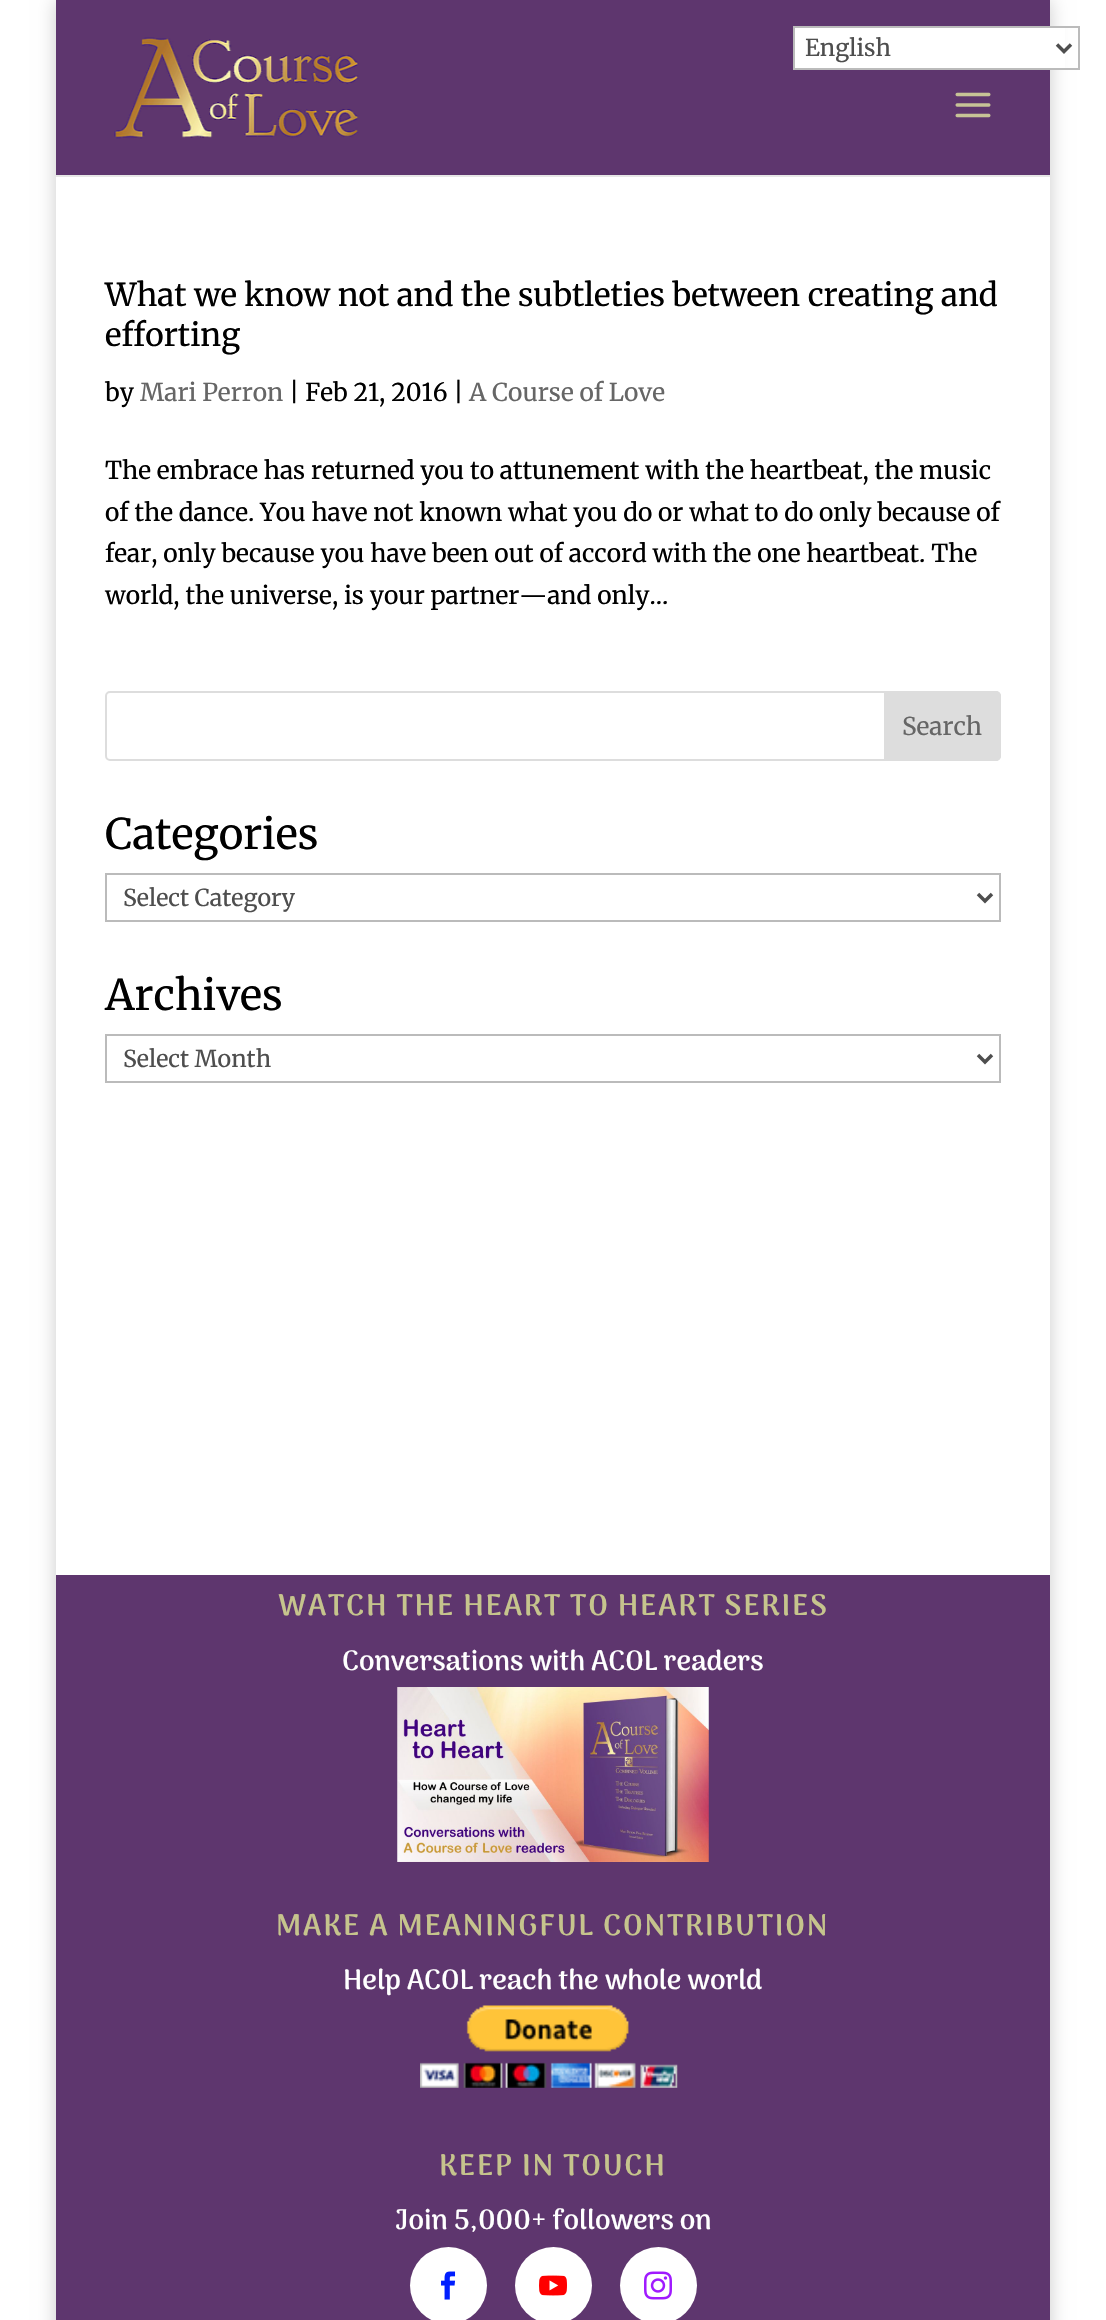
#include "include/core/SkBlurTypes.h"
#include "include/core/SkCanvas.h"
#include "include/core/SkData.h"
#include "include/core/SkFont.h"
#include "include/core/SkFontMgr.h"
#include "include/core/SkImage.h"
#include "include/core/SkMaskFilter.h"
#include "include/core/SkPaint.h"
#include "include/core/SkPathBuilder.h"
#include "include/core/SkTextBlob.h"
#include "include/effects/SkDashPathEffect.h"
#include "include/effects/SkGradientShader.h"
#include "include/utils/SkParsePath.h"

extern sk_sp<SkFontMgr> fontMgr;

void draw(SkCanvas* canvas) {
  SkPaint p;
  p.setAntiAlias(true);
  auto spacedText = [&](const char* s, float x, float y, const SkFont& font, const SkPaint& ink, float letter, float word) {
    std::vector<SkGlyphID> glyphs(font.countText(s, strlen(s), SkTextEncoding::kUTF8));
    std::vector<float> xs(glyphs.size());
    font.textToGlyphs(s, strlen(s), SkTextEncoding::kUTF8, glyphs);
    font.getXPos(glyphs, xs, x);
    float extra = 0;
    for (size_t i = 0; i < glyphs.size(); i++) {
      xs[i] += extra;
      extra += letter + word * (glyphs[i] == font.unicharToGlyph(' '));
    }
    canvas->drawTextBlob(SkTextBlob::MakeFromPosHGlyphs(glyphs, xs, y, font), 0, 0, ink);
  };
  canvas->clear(SK_ColorWHITE);
  canvas->save();
  canvas->clipPath(SkPathBuilder(SkPathFillType::kEvenOdd).moveTo(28, 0).lineTo(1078, 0).lineTo(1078, 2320).lineTo(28, 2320).close().moveTo(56, 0).lineTo(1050, 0).lineTo(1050, 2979).lineTo(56, 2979).close().detach(), true);
  p.setColor(SkColorSetARGB(51, 0, 0, 0));
  p.setMaskFilter(SkMaskFilter::MakeBlur(kNormal_SkBlurStyle, 9));
  canvas->drawRect(SkRect::MakeLTRB(56, 0, 1050, 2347), p);
  p.setMaskFilter(nullptr);
  canvas->restore();
  p.setColor(SkColorSetRGB(94, 54, 110));
  canvas->drawRect(SkRect::MakeLTRB(56, 0, 1050, 175), p);
  p.setColor(SK_ColorWHITE);
  canvas->drawRect(SkRect::MakeLTRB(795, 28, 1065, 68), p);
  p.setStyle(SkPaint::kStroke_Style);
  p.setStrokeWidth(2);
  p.setColor(SkColorSetRGB(187, 187, 187));
  canvas->drawRect(SkRect::MakeLTRB(794, 27, 1079, 69), p);
  p.setStrokeWidth(3.5f);
  p.setColor(SkColorSetRGB(78, 78, 78));
  canvas->drawPath(SkPathBuilder().moveTo(1057, 44.5f).lineTo(1064, 51.5f).lineTo(1071, 44.5f).detach(), p);
  p.setStyle(SkPaint::kFill_Style);
  p.setColor(SkColorSetRGB(230, 230, 230));
  canvas->drawRect(SkRect::MakeLTRB(56, 175, 1050, 177), p);
  canvas->drawImageRect(SkImages::DeferredFromEncodedData(SkData::MakeFromFileName("images/1.png")), SkRect::MakeLTRB(114, 37, 359, 139), SkSamplingOptions());
  canvas->drawImageRect(SkImages::DeferredFromEncodedData(SkData::MakeFromFileName("images/2.png")), SkRect::MakeLTRB(955, 92, 991, 118), SkSamplingOptions());
  p.setStyle(SkPaint::kStroke_Style);
  p.setStrokeWidth(2);
  p.setColor(SkColorSetRGB(221, 221, 221));
  canvas->drawRoundRect(SkRect::MakeLTRB(106, 692, 1000, 760), 4, 4, p);
  p.setStyle(SkPaint::kFill_Style);
  canvas->drawPath(SkPathBuilder().moveTo(885, 692).lineTo(996, 692).cubicTo(998, 692, 1000, 694, 1000, 696).lineTo(1000, 756).cubicTo(1000, 758, 998, 760, 996, 760).lineTo(885, 760).close().detach(), p);
  p.setStyle(SkPaint::kStroke_Style);
  canvas->drawPath(SkPathBuilder().moveTo(885, 692).lineTo(996, 692).cubicTo(998, 692, 1000, 694, 1000, 696).lineTo(1000, 756).cubicTo(1000, 758, 998, 760, 996, 760).lineTo(885, 760).close().detach(), p);
  p.setColor(SkColorSetRGB(187, 187, 187));
  canvas->drawRect(SkRect::MakeLTRB(106, 874, 1000, 921), p);
  p.setStrokeWidth(3.5f);
  p.setColor(SkColorSetRGB(78, 78, 78));
  canvas->drawPath(SkPathBuilder().moveTo(978, 894).lineTo(985, 901).lineTo(992, 894).detach(), p);
  p.setStrokeWidth(2);
  p.setColor(SkColorSetRGB(187, 187, 187));
  canvas->drawRect(SkRect::MakeLTRB(106, 1035, 1000, 1082), p);
  p.setStrokeWidth(3.5f);
  p.setColor(SkColorSetRGB(78, 78, 78));
  canvas->drawPath(SkPathBuilder().moveTo(978, 1055).lineTo(985, 1062).lineTo(992, 1055).detach(), p);
  p.setStyle(SkPaint::kFill_Style);
  p.setColor(SkColorSetRGB(94, 54, 110));
  canvas->drawRect(SkRect::MakeLTRB(56, 1575, 1050, 2320), p);
  canvas->drawImageRect(SkImages::DeferredFromEncodedData(SkData::MakeFromFileName("images/3.png")), SkRect::MakeLTRB(397, 1687, 709, 1862), SkSamplingOptions());
  canvas->drawImageRect(SkImages::DeferredFromEncodedData(SkData::MakeFromFileName("images/4.png")), SkRect::MakeLTRB(420, 2005, 678, 2088), SkSamplingOptions());
  p.setColor(SK_ColorWHITE);
  canvas->drawCircle(448.5f, 2285.5f, 38.5f, p);
  canvas->drawImageRect(SkImages::DeferredFromEncodedData(SkData::MakeFromFileName("images/5.png")), SkRect::MakeLTRB(441, 2271, 456, 2300), SkSamplingOptions());
  canvas->drawCircle(553.5f, 2285.5f, 38.5f, p);
  canvas->drawImageRect(SkImages::DeferredFromEncodedData(SkData::MakeFromFileName("images/6.png")), SkRect::MakeLTRB(539, 2275, 567, 2296), SkSamplingOptions());
  canvas->drawCircle(658.5f, 2285.5f, 38.5f, p);
  canvas->drawImageRect(SkImages::DeferredFromEncodedData(SkData::MakeFromFileName("images/7.png")), SkRect::MakeLTRB(644, 2271, 672, 2300), SkSamplingOptions());
  SkFont font1(fontMgr->matchFamilyStyle("Merriweather", SkFontStyle::Normal()), 23.25f);
  font1.setSubpixel(true);
  p.setColor(SkColorSetRGB(78, 78, 78));
  canvas->drawString("English", 805, 56, font1, p);
  SkFont font2(fontMgr->matchFamilyStyle("Merriweather", SkFontStyle::Normal()), 31.5f);
  font2.setSubpixel(true);
  p.setColor(SK_ColorBLACK);
  canvas->drawString("What we know not and the subtleties between creating and", 105, 306, font2, p);
  canvas->drawString("efforting", 105, 346, font2, p);
  SkFont font3(fontMgr->matchFamilyStyle("Merriweather", SkFontStyle::Normal()), 24.5f);
  font3.setSubpixel(true);
  canvas->drawString("by", 105, 401, font3, p);
  p.setColor(SkColorSetRGB(102, 102, 102));
  canvas->drawString("Mari Perron", 140, 401, font3, p);
  p.setColor(SK_ColorBLACK);
  canvas->drawString("| Feb 21, 2016 |", 289, 401, font3, p);
  p.setColor(SkColorSetRGB(102, 102, 102));
  canvas->drawString("A Course of Love", 469, 401, font3, p);
  p.setColor(SK_ColorBLACK);
  canvas->drawString("The embrace has returned you to attunement with the heartbeat, the music", 105, 479, font3, p);
  canvas->drawString("of the dance. You have not known what you do or what to do only because of", 105, 521, font3, p);
  canvas->drawString("fear, only because you have been out of accord with the one heartbeat. The", 105, 562, font3, p);
  canvas->drawString("world, the universe, is your partner—and only...", 105, 604, font3, p);
  p.setColor(SkColorSetRGB(102, 102, 102));
  canvas->drawString("Search", 902, 735, font3, p);
  SkFont font4(fontMgr->matchFamilyStyle("Merriweather", SkFontStyle::Normal()), 42);
  font4.setSubpixel(true);
  p.setColor(SK_ColorBLACK);
  canvas->drawString("Categories", 105, 849, font4, p);
  p.setColor(SkColorSetRGB(78, 78, 78));
  canvas->drawString("Select Category", 123, 906, font1, p);
  p.setColor(SK_ColorBLACK);
  canvas->drawString("Archives", 105, 1010, font4, p);
  p.setColor(SkColorSetRGB(78, 78, 78));
  canvas->drawString("Select Month", 123, 1067, font1, p);
  SkFont font5(fontMgr->matchFamilyStyle("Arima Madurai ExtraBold", SkFontStyle(800, SkFontStyle::kNormal_Width, SkFontStyle::kUpright_Slant)), 29.75f);
  font5.setSubpixel(true);
  p.setColor(SkColorSetRGB(198, 196, 141));
  spacedText("WATCH THE HEART TO HEART SERIES", 278, 1615, font5, p, 1.75f, 0);
  SkFont font6(fontMgr->matchFamilyStyle("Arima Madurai", SkFontStyle::Bold()), 28);
  font6.setSubpixel(true);
  p.setColor(SK_ColorWHITE);
  canvas->drawString("Conversations with ACOL readers", 342, 1670, font6, p);
  p.setColor(SkColorSetRGB(198, 196, 141));
  spacedText("MAKE A MEANINGFUL CONTRIBUTION", 276, 1935, font5, p, 1.75f, 0);
  p.setColor(SK_ColorWHITE);
  canvas->drawString("Help ACOL reach the whole world", 343, 1989, font6, p);
  p.setColor(SkColorSetRGB(198, 196, 141));
  spacedText("KEEP IN TOUCH", 439, 2175, font5, p, 1.75f, 0);
  p.setColor(SK_ColorWHITE);
  canvas->drawString("Join 5,000+ followers on", 395, 2229, font6, p);
}
